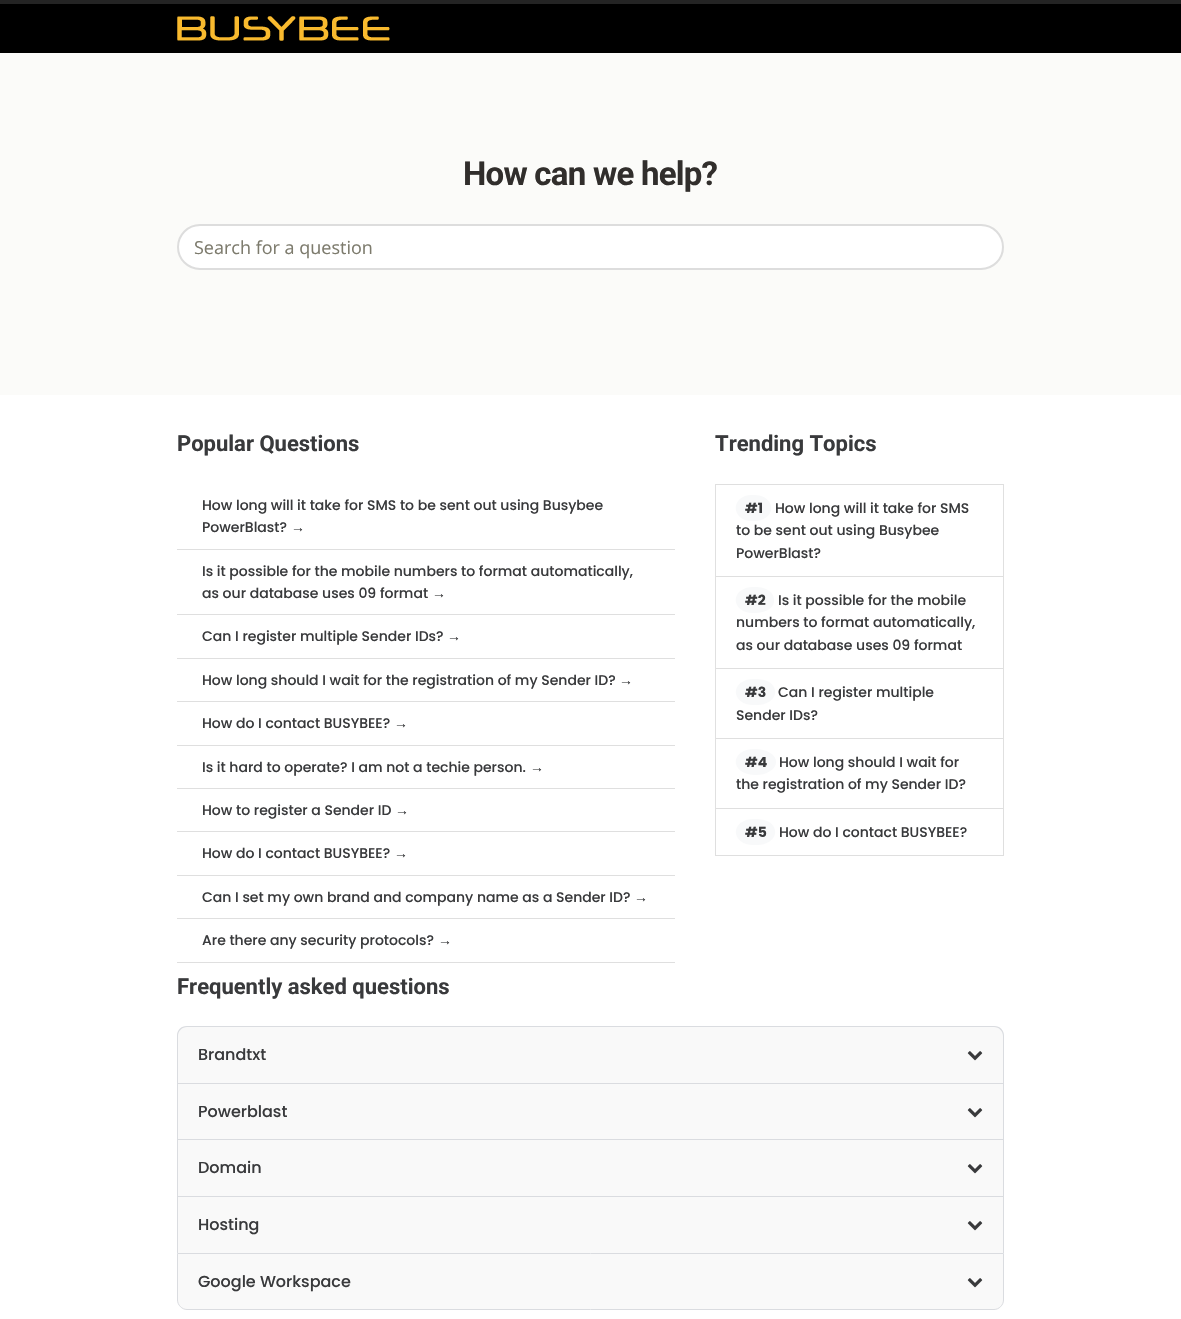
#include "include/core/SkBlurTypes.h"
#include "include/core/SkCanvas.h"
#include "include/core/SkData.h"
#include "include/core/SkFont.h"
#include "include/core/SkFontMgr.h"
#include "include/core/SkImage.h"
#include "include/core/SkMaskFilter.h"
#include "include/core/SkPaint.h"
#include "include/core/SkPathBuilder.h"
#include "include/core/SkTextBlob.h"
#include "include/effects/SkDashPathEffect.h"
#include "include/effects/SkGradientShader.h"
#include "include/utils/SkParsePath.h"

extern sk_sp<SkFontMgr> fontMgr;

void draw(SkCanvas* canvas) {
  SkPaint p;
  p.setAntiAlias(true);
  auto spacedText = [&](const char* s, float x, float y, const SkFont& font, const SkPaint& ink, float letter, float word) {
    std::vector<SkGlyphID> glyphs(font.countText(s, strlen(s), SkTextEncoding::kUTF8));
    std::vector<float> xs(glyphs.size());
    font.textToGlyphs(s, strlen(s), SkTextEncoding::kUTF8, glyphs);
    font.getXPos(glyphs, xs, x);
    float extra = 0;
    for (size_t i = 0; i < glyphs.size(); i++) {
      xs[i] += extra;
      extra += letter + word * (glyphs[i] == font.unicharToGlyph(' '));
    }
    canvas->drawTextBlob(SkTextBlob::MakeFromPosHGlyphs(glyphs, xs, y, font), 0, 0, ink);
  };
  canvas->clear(SK_ColorWHITE);
  p.setColor(SkColorSetRGB(36, 36, 36));
  canvas->drawRect(SkRect::MakeLTRB(0, 0, 1181, 4), p);
  p.setColor(SK_ColorBLACK);
  canvas->drawRect(SkRect::MakeLTRB(0, 4, 1181, 53), p);
  canvas->drawImageRect(SkImages::DeferredFromEncodedData(SkData::MakeFromFileName("images/1.png")), SkRect::MakeLTRB(177, 16, 390, 41), SkSamplingOptions());
  p.setColor(SkColorSetRGB(251, 251, 249));
  canvas->drawRect(SkRect::MakeLTRB(0, 53, 1181, 395), p);
  p.setColor(SK_ColorWHITE);
  canvas->drawRoundRect(SkRect::MakeLTRB(178, 225, 1003, 269), 22, 22, p);
  p.setStyle(SkPaint::kStroke_Style);
  p.setStrokeWidth(2);
  p.setColor(SkColorSetRGB(221, 221, 221));
  canvas->drawRoundRect(SkRect::MakeLTRB(178, 225, 1003, 269), 22, 22, p);
  p.setStyle(SkPaint::kFill_Style);
  p.setColor(SkColorSetRGB(223, 223, 223));
  canvas->drawRect(SkRect::MakeLTRB(177, 549, 675, 550), p);
  canvas->drawRect(SkRect::MakeLTRB(177, 614, 675, 615), p);
  canvas->drawRect(SkRect::MakeLTRB(177, 658, 675, 659), p);
  canvas->drawRect(SkRect::MakeLTRB(177, 701, 675, 702), p);
  canvas->drawRect(SkRect::MakeLTRB(177, 745, 675, 746), p);
  canvas->drawRect(SkRect::MakeLTRB(177, 788, 675, 789), p);
  canvas->drawRect(SkRect::MakeLTRB(177, 831, 675, 832), p);
  canvas->drawRect(SkRect::MakeLTRB(177, 875, 675, 876), p);
  canvas->drawRect(SkRect::MakeLTRB(177, 918, 675, 919), p);
  canvas->drawRect(SkRect::MakeLTRB(177, 962, 675, 963), p);
  canvas->drawPath(SkPathBuilder().moveTo(715, 484).lineTo(1004, 484).lineTo(1003, 485).lineTo(716, 485).close().detach(), p);
  p.setColor(SkColorSetARGB(31, 0, 0, 0));
  canvas->drawPath(SkPathBuilder().moveTo(1004, 484).lineTo(1004, 576).lineTo(1003, 576).lineTo(1003, 485).close().detach(), p);
  canvas->drawPath(SkPathBuilder().moveTo(715, 576).lineTo(715, 484).lineTo(716, 485).lineTo(716, 576).close().detach(), p);
  p.setColor(SkColorSetRGB(248, 249, 250));
  canvas->drawPath(SkPathBuilder().moveTo(752.5f, 495).cubicTo(755.5f, 495, 758, 495, 761, 496).cubicTo(771, 499, 775.5f, 510.5f, 766, 517.5f).cubicTo(762.5f, 520, 758.5f, 521, 754.5f, 521).cubicTo(730.5f, 522.5f, 729.5f, 495, 752.5f, 495).close().detach(), p);
  p.setColor(SkColorSetRGB(223, 223, 223));
  canvas->drawPath(SkPathBuilder().moveTo(715, 576).lineTo(1004, 576).lineTo(1003, 577).lineTo(716, 577).close().detach(), p);
  p.setColor(SkColorSetARGB(31, 0, 0, 0));
  canvas->drawPath(SkPathBuilder().moveTo(1004, 576).lineTo(1004, 668).lineTo(1003, 668).lineTo(1003, 577).close().detach(), p);
  canvas->drawPath(SkPathBuilder().moveTo(715, 668).lineTo(715, 576).lineTo(716, 577).lineTo(716, 668).close().detach(), p);
  p.setColor(SkColorSetRGB(248, 249, 250));
  canvas->drawPath(SkPathBuilder().moveTo(754, 587).cubicTo(757, 587, 760, 587, 763, 588).cubicTo(769, 589.5f, 774.5f, 594, 774, 601).cubicTo(774, 603.5f, 773, 605.5f, 771, 607.5f).cubicTo(767, 611.5f, 761.5f, 612.5f, 756, 613).cubicTo(730, 614.5f, 729, 587, 754, 587).close().detach(), p);
  p.setColor(SkColorSetRGB(223, 223, 223));
  canvas->drawPath(SkPathBuilder().moveTo(715, 668).lineTo(1004, 668).lineTo(1003, 669).lineTo(716, 669).close().detach(), p);
  p.setColor(SkColorSetARGB(31, 0, 0, 0));
  canvas->drawPath(SkPathBuilder().moveTo(1004, 668).lineTo(1004, 738).lineTo(1003, 738).lineTo(1003, 669).close().detach(), p);
  canvas->drawPath(SkPathBuilder().moveTo(715, 738).lineTo(715, 668).lineTo(716, 669).lineTo(716, 738).close().detach(), p);
  p.setColor(SkColorSetRGB(248, 249, 250));
  canvas->drawPath(SkPathBuilder().moveTo(754.5f, 679).cubicTo(758.5f, 679, 763, 679.5f, 767, 681).cubicTo(776, 685, 778.5f, 695.5f, 769.5f, 701.5f).cubicTo(765.5f, 704, 761.5f, 705, 756.5f, 705).cubicTo(730, 706.5f, 729, 679, 754.5f, 679).close().detach(), p);
  p.setColor(SkColorSetRGB(223, 223, 223));
  canvas->drawPath(SkPathBuilder().moveTo(715, 738).lineTo(1004, 738).lineTo(1003, 739).lineTo(716, 739).close().detach(), p);
  p.setColor(SkColorSetARGB(31, 0, 0, 0));
  canvas->drawPath(SkPathBuilder().moveTo(1004, 738).lineTo(1004, 808).lineTo(1003, 808).lineTo(1003, 739).close().detach(), p);
  canvas->drawPath(SkPathBuilder().moveTo(715, 808).lineTo(715, 738).lineTo(716, 739).lineTo(716, 808).close().detach(), p);
  p.setColor(SkColorSetRGB(248, 249, 250));
  canvas->drawPath(SkPathBuilder().moveTo(755, 749).cubicTo(760, 749, 766, 750, 770, 753).cubicTo(778, 757, 778, 767, 770, 771).cubicTo(766, 774, 760, 775, 755, 775).cubicTo(729, 774, 730, 749, 755, 749).close().detach(), p);
  p.setStyle(SkPaint::kStroke_Style);
  p.setStrokeWidth(1);
  p.setColor(SkColorSetRGB(223, 223, 223));
  canvas->drawRect(SkRect::MakeLTRB(715.5f, 808.5f, 1003.5f, 855.5f), p);
  p.setStyle(SkPaint::kFill_Style);
  p.setColor(SkColorSetRGB(248, 249, 250));
  canvas->drawPath(SkPathBuilder().moveTo(754.5f, 819).cubicTo(758.5f, 819, 763, 819.5f, 767, 821).cubicTo(776, 825, 778.5f, 835.5f, 769.5f, 841.5f).cubicTo(765.5f, 844, 761.5f, 845, 756.5f, 845).cubicTo(730, 846.5f, 729, 819, 754.5f, 819).close().detach(), p);
  p.setColor(SkColorSetRGB(249, 249, 249));
  canvas->drawPath(SkPathBuilder().moveTo(187, 1026).lineTo(994, 1026).cubicTo(999.5f, 1026, 1004, 1030.5f, 1004, 1036).lineTo(1004, 1083).lineTo(177, 1083).lineTo(177, 1036).cubicTo(177, 1030.5f, 181.5f, 1026, 187, 1026).close().detach(), p);
  p.setColor(SkColorSetRGB(218, 220, 224));
  canvas->drawPath(SkPathBuilder(SkPathFillType::kEvenOdd).moveTo(187, 1026).lineTo(994, 1026).cubicTo(1000, 1026, 1004, 1030, 1004, 1036).lineTo(1004, 1083).lineTo(177, 1083).lineTo(177, 1036).cubicTo(177, 1030, 181, 1026, 187, 1026).close().moveTo(187, 1027).lineTo(994, 1027).cubicTo(999, 1027, 1003, 1031, 1003, 1036).lineTo(1003, 1083).lineTo(178, 1083).lineTo(178, 1036).cubicTo(178, 1031, 182, 1027, 187, 1027).close().detach(), p);
  canvas->drawImageRect(SkImages::DeferredFromEncodedData(SkData::MakeFromFileName("images/2.png")), SkRect::MakeLTRB(967, 1051, 983, 1061), SkSamplingOptions());
  p.setColor(SkColorSetRGB(249, 249, 249));
  canvas->drawRect(SkRect::MakeLTRB(178, 1084, 1003, 1139), p);
  p.setColor(SkColorSetRGB(218, 220, 224));
  canvas->drawRect(SkRect::MakeLTRB(177, 1083, 1004, 1084), p);
  canvas->drawRect(SkRect::MakeLTRB(1003, 1083, 1004, 1139), p);
  canvas->drawRect(SkRect::MakeLTRB(177, 1083, 178, 1139), p);
  canvas->drawImageRect(SkImages::DeferredFromEncodedData(SkData::MakeFromFileName("images/2.png")), SkRect::MakeLTRB(967, 1108, 983, 1118), SkSamplingOptions());
  p.setColor(SkColorSetRGB(249, 249, 249));
  canvas->drawRect(SkRect::MakeLTRB(178, 1140, 1003, 1196), p);
  p.setColor(SkColorSetRGB(218, 220, 224));
  canvas->drawRect(SkRect::MakeLTRB(177, 1139, 1004, 1140), p);
  canvas->drawRect(SkRect::MakeLTRB(1003, 1139, 1004, 1196), p);
  canvas->drawRect(SkRect::MakeLTRB(177, 1139, 178, 1196), p);
  canvas->drawImageRect(SkImages::DeferredFromEncodedData(SkData::MakeFromFileName("images/2.png")), SkRect::MakeLTRB(967, 1164, 983, 1174), SkSamplingOptions());
  p.setColor(SkColorSetRGB(249, 249, 249));
  canvas->drawRect(SkRect::MakeLTRB(178, 1197, 1003, 1253), p);
  p.setColor(SkColorSetRGB(218, 220, 224));
  canvas->drawRect(SkRect::MakeLTRB(177, 1196, 1004, 1197), p);
  canvas->drawRect(SkRect::MakeLTRB(1003, 1196, 1004, 1253), p);
  canvas->drawRect(SkRect::MakeLTRB(177, 1196, 178, 1253), p);
  canvas->drawImageRect(SkImages::DeferredFromEncodedData(SkData::MakeFromFileName("images/2.png")), SkRect::MakeLTRB(967, 1221, 983, 1231), SkSamplingOptions());
  p.setColor(SkColorSetRGB(249, 249, 249));
  canvas->drawPath(SkPathBuilder().moveTo(177.5f, 1253.5f).lineTo(1003.5f, 1253.5f).lineTo(1003.5f, 1300).cubicTo(1003.5f, 1305, 999, 1309.5f, 994, 1309.5f).lineTo(187, 1309.5f).cubicTo(182, 1309.5f, 177.5f, 1305, 177.5f, 1300).close().detach(), p);
  p.setStyle(SkPaint::kStroke_Style);
  p.setColor(SkColorSetRGB(218, 220, 224));
  canvas->drawPath(SkPathBuilder().moveTo(177.5f, 1253.5f).lineTo(1003.5f, 1253.5f).lineTo(1003.5f, 1300).cubicTo(1003.5f, 1305, 999, 1309.5f, 994, 1309.5f).lineTo(187, 1309.5f).cubicTo(182, 1309.5f, 177.5f, 1305, 177.5f, 1300).close().detach(), p);
  canvas->drawImageRect(SkImages::DeferredFromEncodedData(SkData::MakeFromFileName("images/2.png")), SkRect::MakeLTRB(967, 1278, 983, 1288), SkSamplingOptions());
  SkFont font1(fontMgr->matchFamilyStyle("Roboto", SkFontStyle::Bold()), 33);
  font1.setSubpixel(true);
  p.setStyle(SkPaint::kFill_Style);
  p.setColor(SkColorSetRGB(49, 46, 44));
  spacedText("How can we help?", 463, 185, font1, p, -0.75f, 0);
  SkFont font2(fontMgr->matchFamilyStyle("Open Sans", SkFontStyle::Normal()), 18);
  font2.setSubpixel(true);
  p.setColor(SkColorSetRGB(125, 123, 109));
  canvas->drawString("Search for a question", 194, 254, font2, p);
  SkFont font3(fontMgr->matchFamilyStyle("Roboto", SkFontStyle::Bold()), 22);
  font3.setSubpixel(true);
  p.setColor(SkColorSetRGB(57, 58, 60));
  canvas->drawString("Popular Questions", 177, 451, font3, p);
  SkFont font4(fontMgr->matchFamilyStyle("Poppins", SkFontStyle(500, SkFontStyle::kNormal_Width, SkFontStyle::kUpright_Slant)), 14);
  font4.setSubpixel(true);
  canvas->drawString("How long will it take for SMS to be sent out using Busybee", 202, 510, font4, p);
  canvas->drawString("PowerBlast?", 202, 532, font4, p);
  SkFont font5(fontMgr->matchFamilyStyle("Liberation Serif", SkFontStyle::Normal()), 14);
  font5.setSubpixel(true);
  canvas->drawString("→", 291, 532, font5, p);
  canvas->drawString("Is it possible for the mobile numbers to format automatically,", 202, 576, font4, p);
  canvas->drawString("as our database uses 09 format", 202, 598, font4, p);
  canvas->drawString("→", 432, 598, font5, p);
  canvas->drawString("Can I register multiple Sender IDs?", 202, 641, font4, p);
  canvas->drawString("→", 447, 641, font5, p);
  canvas->drawString("How long should I wait for the registration of my Sender ID?", 202, 685, font4, p);
  canvas->drawString("→", 619, 685, font5, p);
  canvas->drawString("How do I contact BUSYBEE?", 202, 728, font4, p);
  canvas->drawString("→", 394, 728, font5, p);
  canvas->drawString("Is it hard to operate? I am not a techie person.", 202, 772, font4, p);
  canvas->drawString("→", 530, 772, font5, p);
  canvas->drawString("How to register a Sender ID", 202, 815, font4, p);
  canvas->drawString("→", 395, 815, font5, p);
  canvas->drawString("How do I contact BUSYBEE?", 202, 858, font4, p);
  canvas->drawString("→", 394, 858, font5, p);
  canvas->drawString("Can I set my own brand and company name as a Sender ID?", 202, 902, font4, p);
  canvas->drawString("→", 634, 902, font5, p);
  canvas->drawString("Are there any security protocols?", 202, 945, font4, p);
  canvas->drawString("→", 438, 945, font5, p);
  canvas->drawString("Trending Topics", 715, 451, font3, p);
  SkFont font6(fontMgr->matchFamilyStyle("Poppins", SkFontStyle::Bold()), 14);
  font6.setSubpixel(true);
  canvas->drawString("#1", 745, 513, font6, p);
  canvas->drawString("How long will it take for SMS", 775, 513, font4, p);
  canvas->drawString("to be sent out using Busybee", 736, 535, font4, p);
  canvas->drawString("PowerBlast?", 736, 558, font4, p);
  canvas->drawString("#2", 745, 605, font6, p);
  canvas->drawString("Is it possible for the mobile", 778, 605, font4, p);
  canvas->drawString("numbers to format automatically,", 736, 627, font4, p);
  canvas->drawString("as our database uses 09 format", 736, 650, font4, p);
  canvas->drawString("#3", 745, 697, font6, p);
  canvas->drawString("Can I register multiple", 778, 697, font4, p);
  canvas->drawString("Sender IDs?", 736, 720, font4, p);
  canvas->drawString("#4", 745, 767, font6, p);
  canvas->drawString("How long should I wait for", 779, 767, font4, p);
  canvas->drawString("the registration of my Sender ID?", 736, 789, font4, p);
  canvas->drawString("#5", 745, 837, font6, p);
  canvas->drawString("How do I contact BUSYBEE?", 779, 837, font4, p);
  canvas->drawString("Frequently asked questions", 177, 994, font3, p);
  SkFont font7(fontMgr->matchFamilyStyle("Poppins", SkFontStyle(500, SkFontStyle::kNormal_Width, SkFontStyle::kUpright_Slant)), 16);
  font7.setSubpixel(true);
  canvas->drawString("Brandtxt", 198, 1060, font7, p);
  canvas->drawString("Powerblast", 198, 1117, font7, p);
  canvas->drawString("Domain", 198, 1173, font7, p);
  canvas->drawString("Hosting", 198, 1230, font7, p);
  canvas->drawString("Google Workspace", 198, 1287, font7, p);
}
